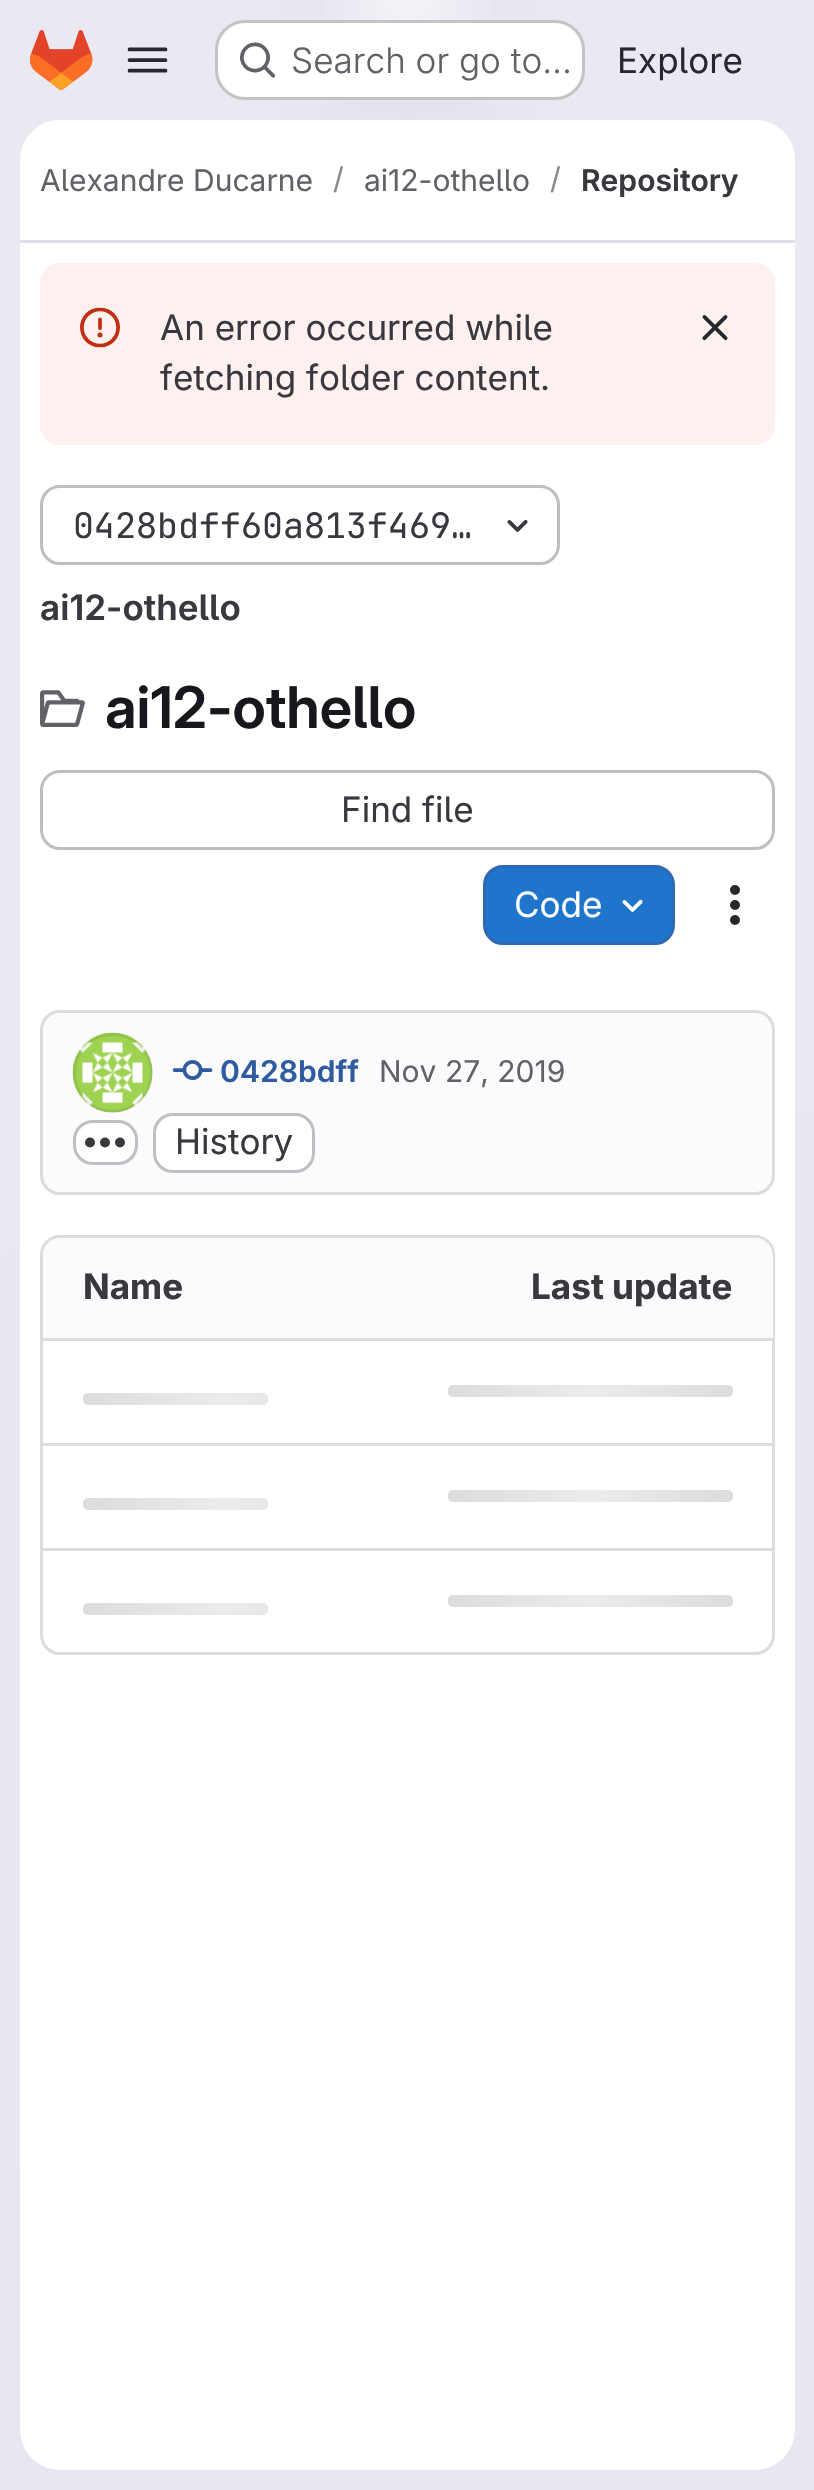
#include "include/core/SkBlurTypes.h"
#include "include/core/SkCanvas.h"
#include "include/core/SkData.h"
#include "include/core/SkFont.h"
#include "include/core/SkFontMgr.h"
#include "include/core/SkImage.h"
#include "include/core/SkMaskFilter.h"
#include "include/core/SkPaint.h"
#include "include/core/SkPathBuilder.h"
#include "include/core/SkTextBlob.h"
#include "include/effects/SkDashPathEffect.h"
#include "include/effects/SkGradientShader.h"
#include "include/utils/SkParsePath.h"

extern sk_sp<SkFontMgr> fontMgr;

void draw(SkCanvas* canvas) {
  SkPaint p;
  p.setAntiAlias(true);
  canvas->clear(SK_ColorWHITE);
  {
    const SkColor colors[] = {SkColorSetRGB(232, 230, 240), SkColorSetRGB(234, 233, 242)};
    const float stops[] = {0, 0.7f};
    const SkPoint ends[] = {{633, 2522}, {182, -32}};
    p.setShader(SkGradientShader::MakeLinear(ends, colors, stops, 2, SkTileMode::kClamp));
    p.setAlpha(255);
  }
  canvas->drawRect(SkRect::MakeLTRB(0, 0, 814, 2490), p);
  {
    const SkColor colors[] = {SkColorSetRGB(228, 226, 237), SkColorSetARGB(0, 228, 226, 237)};
    const float stops[] = {0, 0.43f};
    SkMatrix m = SkMatrix::Translate(408, 0).preScale(408, 2490);
    p.setShader(SkGradientShader::MakeRadial({0, 0}, 1, colors, stops, 2, SkTileMode::kClamp, 0, &m));
    p.setAlpha(255);
  }
  canvas->drawRect(SkRect::MakeLTRB(281, 0, 535, 120), p);
  {
    const SkColor colors[] = {SkColorSetRGB(228, 226, 236), SkColorSetARGB(0, 228, 226, 236)};
    const float stops[] = {0, 0.31f};
    SkMatrix m = SkMatrix::Translate(408, 0).preScale(408, 2490);
    p.setShader(SkGradientShader::MakeRadial({0, 0}, 1, colors, stops, 2, SkTileMode::kClamp, 0, &m));
    p.setAlpha(255);
  }
  canvas->drawRect(SkRect::MakeLTRB(355, 21, 461, 113), p);
  {
    const SkColor colors[] = {SkColorSetARGB(153, 255, 255, 255), SkColorSetARGB(0, 255, 255, 255)};
    const float stops[] = {0, 0.04f};
    p.setShader(SkGradientShader::MakeRadial({408, 0}, 2523, colors, stops, 2, SkTileMode::kClamp));
    p.setAlpha(255);
  }
  canvas->drawRect(SkRect::MakeLTRB(324, 0, 492, 20), p);
  canvas->drawImageRect(SkImages::DeferredFromEncodedData(SkData::MakeFromFileName("images/1.png")), SkRect::MakeLTRB(30, 30, 93, 90), SkSamplingOptions());
  canvas->drawImageRect(SkImages::DeferredFromEncodedData(SkData::MakeFromFileName("images/2.png")), SkRect::MakeLTRB(127, 47, 168, 73), SkSamplingOptions());
  p.setShader(nullptr);
  p.setColor(SK_ColorWHITE);
  canvas->drawRoundRect(SkRect::MakeLTRB(215, 20, 585, 100), 30, 30, p);
  p.setStyle(SkPaint::kStroke_Style);
  p.setStrokeWidth(3);
  p.setColor(SkColorSetARGB(61, 5, 5, 6));
  canvas->drawRoundRect(SkRect::MakeLTRB(216.5f, 21.5f, 583.5f, 98.5f), 28.5f, 28.5f, p);
  canvas->drawImageRect(SkImages::DeferredFromEncodedData(SkData::MakeFromFileName("images/3.png")), SkRect::MakeLTRB(240, 42, 276, 78), SkSamplingOptions());
  p.setStyle(SkPaint::kFill_Style);
  p.setColor(SK_ColorWHITE);
  canvas->drawRoundRect(SkRect::MakeLTRB(20, 120, 795, 2470), 40, 40, p);
  canvas->drawPath(SkPathBuilder().moveTo(60, 120).lineTo(755, 120).cubicTo(777, 120, 795, 138, 795, 160).lineTo(795, 243).lineTo(20, 243).lineTo(20, 160).cubicTo(20, 138, 38, 120, 60, 120).close().detach(), p);
  p.setColor(SkColorSetRGB(225, 223, 236));
  canvas->drawRect(SkRect::MakeLTRB(20, 240, 795, 243), p);
  p.setColor(SkColorSetRGB(252, 241, 239));
  canvas->drawRoundRect(SkRect::MakeLTRB(40, 263, 775, 445), 20, 20, p);
  canvas->drawImageRect(SkImages::DeferredFromEncodedData(SkData::MakeFromFileName("images/4.png")), SkRect::MakeLTRB(80, 307, 120, 348), SkSamplingOptions());
  canvas->drawImageRect(SkImages::DeferredFromEncodedData(SkData::MakeFromFileName("images/5.png")), SkRect::MakeLTRB(702, 315, 728, 341), SkSamplingOptions());
  p.setStyle(SkPaint::kStroke_Style);
  p.setColor(SkColorSetRGB(191, 191, 195));
  canvas->drawRoundRect(SkRect::MakeLTRB(41.5f, 486.5f, 558.5f, 563.5f), 18.5f, 18.5f, p);
  canvas->drawImageRect(SkImages::DeferredFromEncodedData(SkData::MakeFromFileName("images/6.png")), SkRect::MakeLTRB(507, 519, 528, 532), SkSamplingOptions());
  canvas->drawImageRect(SkImages::DeferredFromEncodedData(SkData::MakeFromFileName("images/7.png")), SkRect::MakeLTRB(40, 690, 85, 727), SkSamplingOptions());
  canvas->drawRoundRect(SkRect::MakeLTRB(41.5f, 771.5f, 773.5f, 848.5f), 18.5f, 18.5f, p);
  p.setStyle(SkPaint::kFill_Style);
  p.setColor(SkColorSetRGB(31, 117, 203));
  canvas->drawRoundRect(SkRect::MakeLTRB(484.5f, 866.5f, 673.5f, 943.5f), 18.5f, 18.5f, p);
  p.setStyle(SkPaint::kStroke_Style);
  p.setColor(SkColorSetRGB(47, 104, 180));
  canvas->drawRoundRect(SkRect::MakeLTRB(484.5f, 866.5f, 673.5f, 943.5f), 18.5f, 18.5f, p);
  canvas->drawImageRect(SkImages::DeferredFromEncodedData(SkData::MakeFromFileName("images/8.png")), SkRect::MakeLTRB(622, 899, 643, 912), SkSamplingOptions());
  canvas->drawImageRect(SkImages::DeferredFromEncodedData(SkData::MakeFromFileName("images/9.png")), SkRect::MakeLTRB(730, 885, 740, 925), SkSamplingOptions());
  p.setStyle(SkPaint::kFill_Style);
  p.setColor(SkColorSetRGB(251, 250, 253));
  canvas->drawRoundRect(SkRect::MakeLTRB(41.5f, 1011.5f, 773.5f, 1193.5f), 18.5f, 18.5f, p);
  p.setStyle(SkPaint::kStroke_Style);
  p.setColor(SkColorSetRGB(220, 220, 222));
  canvas->drawRoundRect(SkRect::MakeLTRB(41.5f, 1011.5f, 773.5f, 1193.5f), 18.5f, 18.5f, p);
  canvas->drawImageRect(SkImages::DeferredFromEncodedData(SkData::MakeFromFileName("images/10.png")), SkRect::MakeLTRB(72, 1032, 153, 1113), SkSamplingOptions());
  p.setColor(SkColorSetARGB(20, 5, 5, 6));
  canvas->drawCircle(113, 1073, 38.5f, p);
  canvas->drawImageRect(SkImages::DeferredFromEncodedData(SkData::MakeFromFileName("images/11.png")), SkRect::MakeLTRB(172, 1060, 213, 1080), SkSamplingOptions());
  p.setStyle(SkPaint::kFill_Style);
  p.setColor(SK_ColorWHITE);
  canvas->drawRoundRect(SkRect::MakeLTRB(74.5f, 1121.5f, 136.5f, 1163.5f), 18.5f, 18.5f, p);
  p.setStyle(SkPaint::kStroke_Style);
  p.setColor(SkColorSetRGB(191, 191, 195));
  canvas->drawRoundRect(SkRect::MakeLTRB(74.5f, 1121.5f, 136.5f, 1163.5f), 18.5f, 18.5f, p);
  canvas->drawImageRect(SkImages::DeferredFromEncodedData(SkData::MakeFromFileName("images/12.png")), SkRect::MakeLTRB(85, 1137, 125, 1148), SkSamplingOptions());
  p.setStyle(SkPaint::kFill_Style);
  p.setColor(SK_ColorWHITE);
  canvas->drawRoundRect(SkRect::MakeLTRB(154.5f, 1114.5f, 313.5f, 1171.5f), 18.5f, 18.5f, p);
  p.setStyle(SkPaint::kStroke_Style);
  p.setColor(SkColorSetRGB(191, 191, 195));
  canvas->drawRoundRect(SkRect::MakeLTRB(154.5f, 1114.5f, 313.5f, 1171.5f), 18.5f, 18.5f, p);
  p.setColor(SkColorSetRGB(220, 220, 222));
  canvas->drawRoundRect(SkRect::MakeLTRB(41.5f, 1236.5f, 773.5f, 1653.5f), 18.5f, 18.5f, p);
  p.setStyle(SkPaint::kFill_Style);
  p.setColor(SkColorSetRGB(251, 250, 253));
  canvas->drawPath(SkPathBuilder().moveTo(61, 1238).lineTo(408, 1238).lineTo(408, 1338).lineTo(43, 1338).lineTo(43, 1256).cubicTo(43, 1246, 51, 1238, 61, 1238).close().detach(), p);
  canvas->drawPath(SkPathBuilder().moveTo(408, 1238).lineTo(755, 1238).cubicTo(765, 1238, 773, 1246, 773, 1256).lineTo(773, 1338).lineTo(408, 1338).close().detach(), p);
  p.setColor(SkColorSetRGB(220, 220, 222));
  canvas->drawRect(SkRect::MakeLTRB(43, 1338, 773, 1341), p);
  {
    const SkColor colors[] = {SkColorSetRGB(220, 220, 222), SkColorSetRGB(236, 236, 239), SkColorSetRGB(220, 220, 222)};
    const float stops[] = {0, 0.5f, 1};
    const SkPoint ends[] = {{448, 1385}, {733, 1385}};
    p.setShader(SkGradientShader::MakeLinear(ends, colors, stops, 3, SkTileMode::kClamp));
    p.setAlpha(255);
  }
  canvas->drawRoundRect(SkRect::MakeLTRB(448, 1385, 733, 1397), 5, 5, p);
  {
    const SkColor colors[] = {SkColorSetRGB(220, 220, 222), SkColorSetRGB(236, 236, 239), SkColorSetRGB(220, 220, 222)};
    const float stops[] = {0, 0.5f, 1};
    const SkPoint ends[] = {{83, 1393}, {367, 1393}};
    p.setShader(SkGradientShader::MakeLinear(ends, colors, stops, 3, SkTileMode::kClamp));
    p.setAlpha(255);
  }
  canvas->drawRoundRect(SkRect::MakeLTRB(83, 1393, 268, 1405), 5, 5, p);
  p.setShader(nullptr);
  p.setColor(SkColorSetRGB(220, 220, 222));
  canvas->drawRect(SkRect::MakeLTRB(43, 1443, 773, 1446), p);
  {
    const SkColor colors[] = {SkColorSetRGB(220, 220, 222), SkColorSetRGB(236, 236, 239), SkColorSetRGB(220, 220, 222)};
    const float stops[] = {0, 0.5f, 1};
    const SkPoint ends[] = {{448, 1490}, {733, 1490}};
    p.setShader(SkGradientShader::MakeLinear(ends, colors, stops, 3, SkTileMode::kClamp));
    p.setAlpha(255);
  }
  canvas->drawRoundRect(SkRect::MakeLTRB(448, 1490, 733, 1502), 5, 5, p);
  {
    const SkColor colors[] = {SkColorSetRGB(220, 220, 222), SkColorSetRGB(236, 236, 239), SkColorSetRGB(220, 220, 222)};
    const float stops[] = {0, 0.5f, 1};
    const SkPoint ends[] = {{83, 1498}, {367, 1498}};
    p.setShader(SkGradientShader::MakeLinear(ends, colors, stops, 3, SkTileMode::kClamp));
    p.setAlpha(255);
  }
  canvas->drawRoundRect(SkRect::MakeLTRB(83, 1498, 268, 1510), 5, 5, p);
  p.setShader(nullptr);
  p.setColor(SkColorSetRGB(220, 220, 222));
  canvas->drawRect(SkRect::MakeLTRB(43, 1548, 773, 1551), p);
  {
    const SkColor colors[] = {SkColorSetRGB(220, 220, 222), SkColorSetRGB(236, 236, 239), SkColorSetRGB(220, 220, 222)};
    const float stops[] = {0, 0.5f, 1};
    const SkPoint ends[] = {{448, 1595}, {733, 1595}};
    p.setShader(SkGradientShader::MakeLinear(ends, colors, stops, 3, SkTileMode::kClamp));
    p.setAlpha(255);
  }
  canvas->drawRoundRect(SkRect::MakeLTRB(448, 1595, 733, 1607), 5, 5, p);
  {
    const SkColor colors[] = {SkColorSetRGB(220, 220, 222), SkColorSetRGB(236, 236, 239), SkColorSetRGB(220, 220, 222)};
    const float stops[] = {0, 0.5f, 1};
    const SkPoint ends[] = {{83, 1603}, {367, 1603}};
    p.setShader(SkGradientShader::MakeLinear(ends, colors, stops, 3, SkTileMode::kClamp));
    p.setAlpha(255);
  }
  canvas->drawRoundRect(SkRect::MakeLTRB(83, 1603, 268, 1615), 5, 5, p);
  SkFont font1(fontMgr->matchFamilyStyle("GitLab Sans", SkFontStyle(300, SkFontStyle::kNormal_Width, SkFontStyle::kUpright_Slant)), 35);
  font1.setSubpixel(true);
  p.setShader(nullptr);
  p.setColor(SkColorSetRGB(98, 97, 104));
  canvas->drawString("Search or go to…", 291, 73, font1, p);
  SkFont font2(fontMgr->matchFamilyStyle("GitLab Sans", SkFontStyle::Normal()), 35);
  font2.setSubpixel(true);
  p.setColor(SkColorSetRGB(40, 39, 45));
  canvas->drawString("Explore", 617, 73, font2, p);
  SkFont font3(fontMgr->matchFamilyStyle("GitLab Sans", SkFontStyle::Normal()), 30);
  font3.setSubpixel(true);
  p.setColor(SkColorSetRGB(98, 97, 104));
  canvas->drawString("Alexandre Ducarne", 40, 191, font3, p);
  p.setColor(SkColorSetRGB(137, 136, 141));
  canvas->drawString("/", 333, 189, font3, p);
  p.setColor(SkColorSetRGB(98, 97, 104));
  canvas->drawString("ai12-othello", 364, 191, font3, p);
  p.setColor(SkColorSetRGB(137, 136, 141));
  canvas->drawString("/", 550, 189, font3, p);
  SkFont font4(fontMgr->matchFamilyStyle("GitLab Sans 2", SkFontStyle(600, SkFontStyle::kNormal_Width, SkFontStyle::kUpright_Slant)), 30);
  font4.setSubpixel(true);
  p.setColor(SkColorSetRGB(58, 56, 63));
  canvas->drawString("Repository", 581, 191, font4, p);
  canvas->drawString("An error occurred while", 160, 340, font2, p);
  canvas->drawString("fetching folder content.", 160, 390, font2, p);
  SkFont font5(fontMgr->matchFamilyStyle("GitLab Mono", SkFontStyle::Normal()), 35);
  font5.setSubpixel(true);
  canvas->drawString("0428bdff60a813f469…", 73, 538, font5, p);
  SkFont font6(fontMgr->matchFamilyStyle("GitLab Sans 2", SkFontStyle(600, SkFontStyle::kNormal_Width, SkFontStyle::kUpright_Slant)), 35);
  font6.setSubpixel(true);
  canvas->drawString("ai12-othello", 40, 620, font6, p);
  SkFont font7(fontMgr->matchFamilyStyle("GitLab Sans", SkFontStyle(600, SkFontStyle::kNormal_Width, SkFontStyle::kUpright_Slant)), 57.5f);
  font7.setSubpixel(true);
  p.setColor(SkColorSetRGB(24, 23, 29));
  canvas->drawString("ai12-othello", 105, 728, font7, p);
  p.setColor(SkColorSetRGB(58, 56, 63));
  canvas->drawString("Find file", 341, 822, font2, p);
  p.setColor(SK_ColorWHITE);
  canvas->drawString("Code", 514, 917, font2, p);
  p.setColor(SkColorSetRGB(47, 92, 160));
  canvas->drawString("0428bdff", 220, 1082, font4, p);
  p.setColor(SkColorSetRGB(98, 97, 104));
  canvas->drawString("Nov 27, 2019", 379, 1082, font3, p);
  p.setColor(SkColorSetRGB(58, 56, 63));
  canvas->drawString("History", 175, 1154, font2, p);
  SkFont font8(fontMgr->matchFamilyStyle("GitLab Sans", SkFontStyle::Bold()), 35);
  font8.setSubpixel(true);
  canvas->drawString("Name", 83, 1299, font8, p);
  canvas->drawString("Last update", 531, 1299, font8, p);
}
